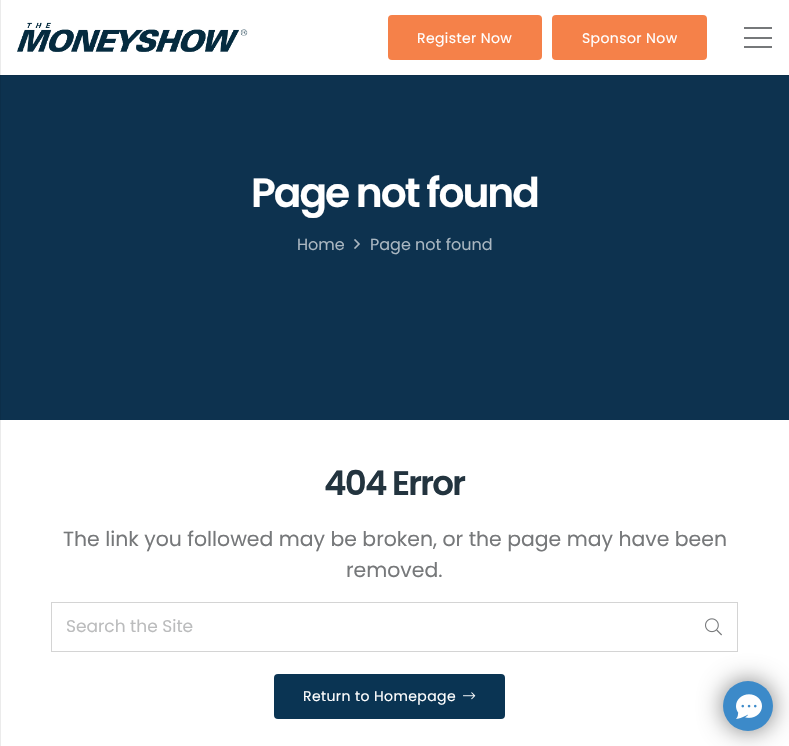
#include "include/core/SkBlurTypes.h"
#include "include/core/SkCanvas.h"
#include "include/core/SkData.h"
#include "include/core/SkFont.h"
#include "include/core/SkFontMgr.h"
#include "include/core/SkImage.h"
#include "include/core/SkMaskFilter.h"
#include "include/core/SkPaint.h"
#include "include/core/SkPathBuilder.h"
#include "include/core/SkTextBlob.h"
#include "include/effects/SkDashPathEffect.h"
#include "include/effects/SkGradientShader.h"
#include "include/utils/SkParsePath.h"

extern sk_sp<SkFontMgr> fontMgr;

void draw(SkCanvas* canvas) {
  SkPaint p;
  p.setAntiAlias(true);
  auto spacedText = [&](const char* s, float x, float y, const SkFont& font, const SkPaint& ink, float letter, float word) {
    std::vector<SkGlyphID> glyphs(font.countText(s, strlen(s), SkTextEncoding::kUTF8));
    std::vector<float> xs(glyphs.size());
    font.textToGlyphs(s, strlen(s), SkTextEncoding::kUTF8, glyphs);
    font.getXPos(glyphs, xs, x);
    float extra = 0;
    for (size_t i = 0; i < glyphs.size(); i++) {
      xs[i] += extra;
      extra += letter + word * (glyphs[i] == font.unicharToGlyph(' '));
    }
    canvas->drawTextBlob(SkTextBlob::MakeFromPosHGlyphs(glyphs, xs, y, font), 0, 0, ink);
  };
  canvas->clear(SK_ColorWHITE);
  p.setColor(SkColorSetRGB(235, 235, 235));
  canvas->drawRect(SkRect::MakeLTRB(0, 420, 1, 746), p);
  p.setColor(SkColorSetRGB(12, 46, 73));
  canvas->drawRect(SkRect::MakeLTRB(0, 75, 789, 76), p);
  p.setColor(SkColorSetRGB(11, 42, 67));
  canvas->drawRect(SkRect::MakeLTRB(0, 75, 1, 76), p);
  p.setColor(SkColorSetRGB(235, 235, 235));
  canvas->drawRect(SkRect::MakeLTRB(0, 0, 1, 75), p);
  canvas->drawImageRect(SkImages::DeferredFromEncodedData(SkData::MakeFromFileName("images/1.png")), SkRect::MakeLTRB(17, 22, 248, 52), SkSamplingOptions());
  p.setColor(SkColorSetRGB(245, 129, 73));
  canvas->drawRoundRect(SkRect::MakeLTRB(388, 15, 542, 60), 4, 4, p);
  canvas->drawRoundRect(SkRect::MakeLTRB(552, 15, 707, 60), 4, 4, p);
  p.setColor(SkColorSetRGB(118, 120, 122));
  canvas->drawRect(SkRect::MakeLTRB(744, 37, 772, 39), p);
  canvas->drawRect(SkRect::MakeLTRB(744, 27, 772, 29), p);
  canvas->drawRect(SkRect::MakeLTRB(744, 46, 772, 48), p);
  p.setColor(SkColorSetRGB(13, 50, 79));
  canvas->drawRect(SkRect::MakeLTRB(1, 76, 789, 420), p);
  p.setColor(SkColorSetRGB(12, 46, 73));
  canvas->drawRect(SkRect::MakeLTRB(0, 76, 1, 420), p);
  canvas->drawImageRect(SkImages::DeferredFromEncodedData(SkData::MakeFromFileName("images/2.png")), SkRect::MakeLTRB(354, 239, 360, 249), SkSamplingOptions());
  p.setStyle(SkPaint::kStroke_Style);
  p.setStrokeWidth(1);
  p.setColor(SkColorSetRGB(212, 212, 212));
  canvas->drawRect(SkRect::MakeLTRB(51.5f, 602.5f, 737.5f, 651.5f), p);
  canvas->drawImageRect(SkImages::DeferredFromEncodedData(SkData::MakeFromFileName("images/3.png")), SkRect::MakeLTRB(705, 618, 722, 636), SkSamplingOptions());
  p.setStyle(SkPaint::kFill_Style);
  p.setColor(SkColorSetRGB(10, 52, 83));
  canvas->drawRoundRect(SkRect::MakeLTRB(274, 674, 505, 719), 4, 4, p);
  canvas->drawImageRect(SkImages::DeferredFromEncodedData(SkData::MakeFromFileName("images/4.png")), SkRect::MakeLTRB(463, 692, 476, 700), SkSamplingOptions());
  p.setColor(SkColorSetRGB(122, 122, 122));
  p.setMaskFilter(SkMaskFilter::MakeBlur(kNormal_SkBlurStyle, 12.5f));
  canvas->drawRoundRect(SkRect::MakeLTRB(723, 681, 773, 731), 25, 25, p);
  p.setMaskFilter(nullptr);
  p.setColor(SkColorSetRGB(60, 138, 201));
  canvas->drawCircle(748, 706, 25, p);
  canvas->drawImageRect(SkImages::DeferredFromEncodedData(SkData::MakeFromFileName("images/5.png")), SkRect::MakeLTRB(736, 694, 762, 719), SkSamplingOptions());
  SkFont font1(fontMgr->matchFamilyStyle("Poppins", SkFontStyle::Normal()), 14);
  font1.setSubpixel(true);
  p.setColor(SK_ColorWHITE);
  spacedText("Register Now", 417, 43, font1, p, 0.4f, 0);
  spacedText("Sponsor Now", 582, 43, font1, p, 0.4f, 0);
  SkFont font2(fontMgr->matchFamilyStyle("Poppins", SkFontStyle(600, SkFontStyle::kNormal_Width, SkFontStyle::kUpright_Slant)), 40.75f);
  font2.setSubpixel(true);
  spacedText("Page not found", 251, 207, font2, p, -2, 0);
  SkFont font3(fontMgr->matchFamilyStyle("Poppins", SkFontStyle::Normal()), 16);
  font3.setSubpixel(true);
  p.setColor(SkColorSetRGB(170, 183, 193));
  canvas->drawString("Home", 297, 250, font3, p);
  canvas->drawString("Page not found", 370, 250, font3, p);
  SkFont font4(fontMgr->matchFamilyStyle("Poppins", SkFontStyle(600, SkFontStyle::kNormal_Width, SkFontStyle::kUpright_Slant)), 34);
  font4.setSubpixel(true);
  p.setColor(SkColorSetRGB(35, 52, 63));
  spacedText("404 Error", 324, 495, font4, p, -1.75f, 0);
  SkFont font5(fontMgr->matchFamilyStyle("Poppins", SkFontStyle::Normal()), 20.4f);
  font5.setSubpixel(true);
  p.setColor(SkColorSetRGB(118, 120, 122));
  canvas->drawString("The link you followed may be broken, or the page may have been", 63, 546, font5, p);
  canvas->drawString("removed.", 346, 577, font5, p);
  SkFont font6(fontMgr->matchFamilyStyle("Poppins", SkFontStyle::Normal()), 17);
  font6.setSubpixel(true);
  p.setColor(SkColorSetRGB(187, 188, 189));
  canvas->drawString("Search the Site", 66, 632, font6, p);
  p.setColor(SK_ColorWHITE);
  spacedText("Return to Homepage", 303, 701, font1, p, 0.4f, 0);
}
